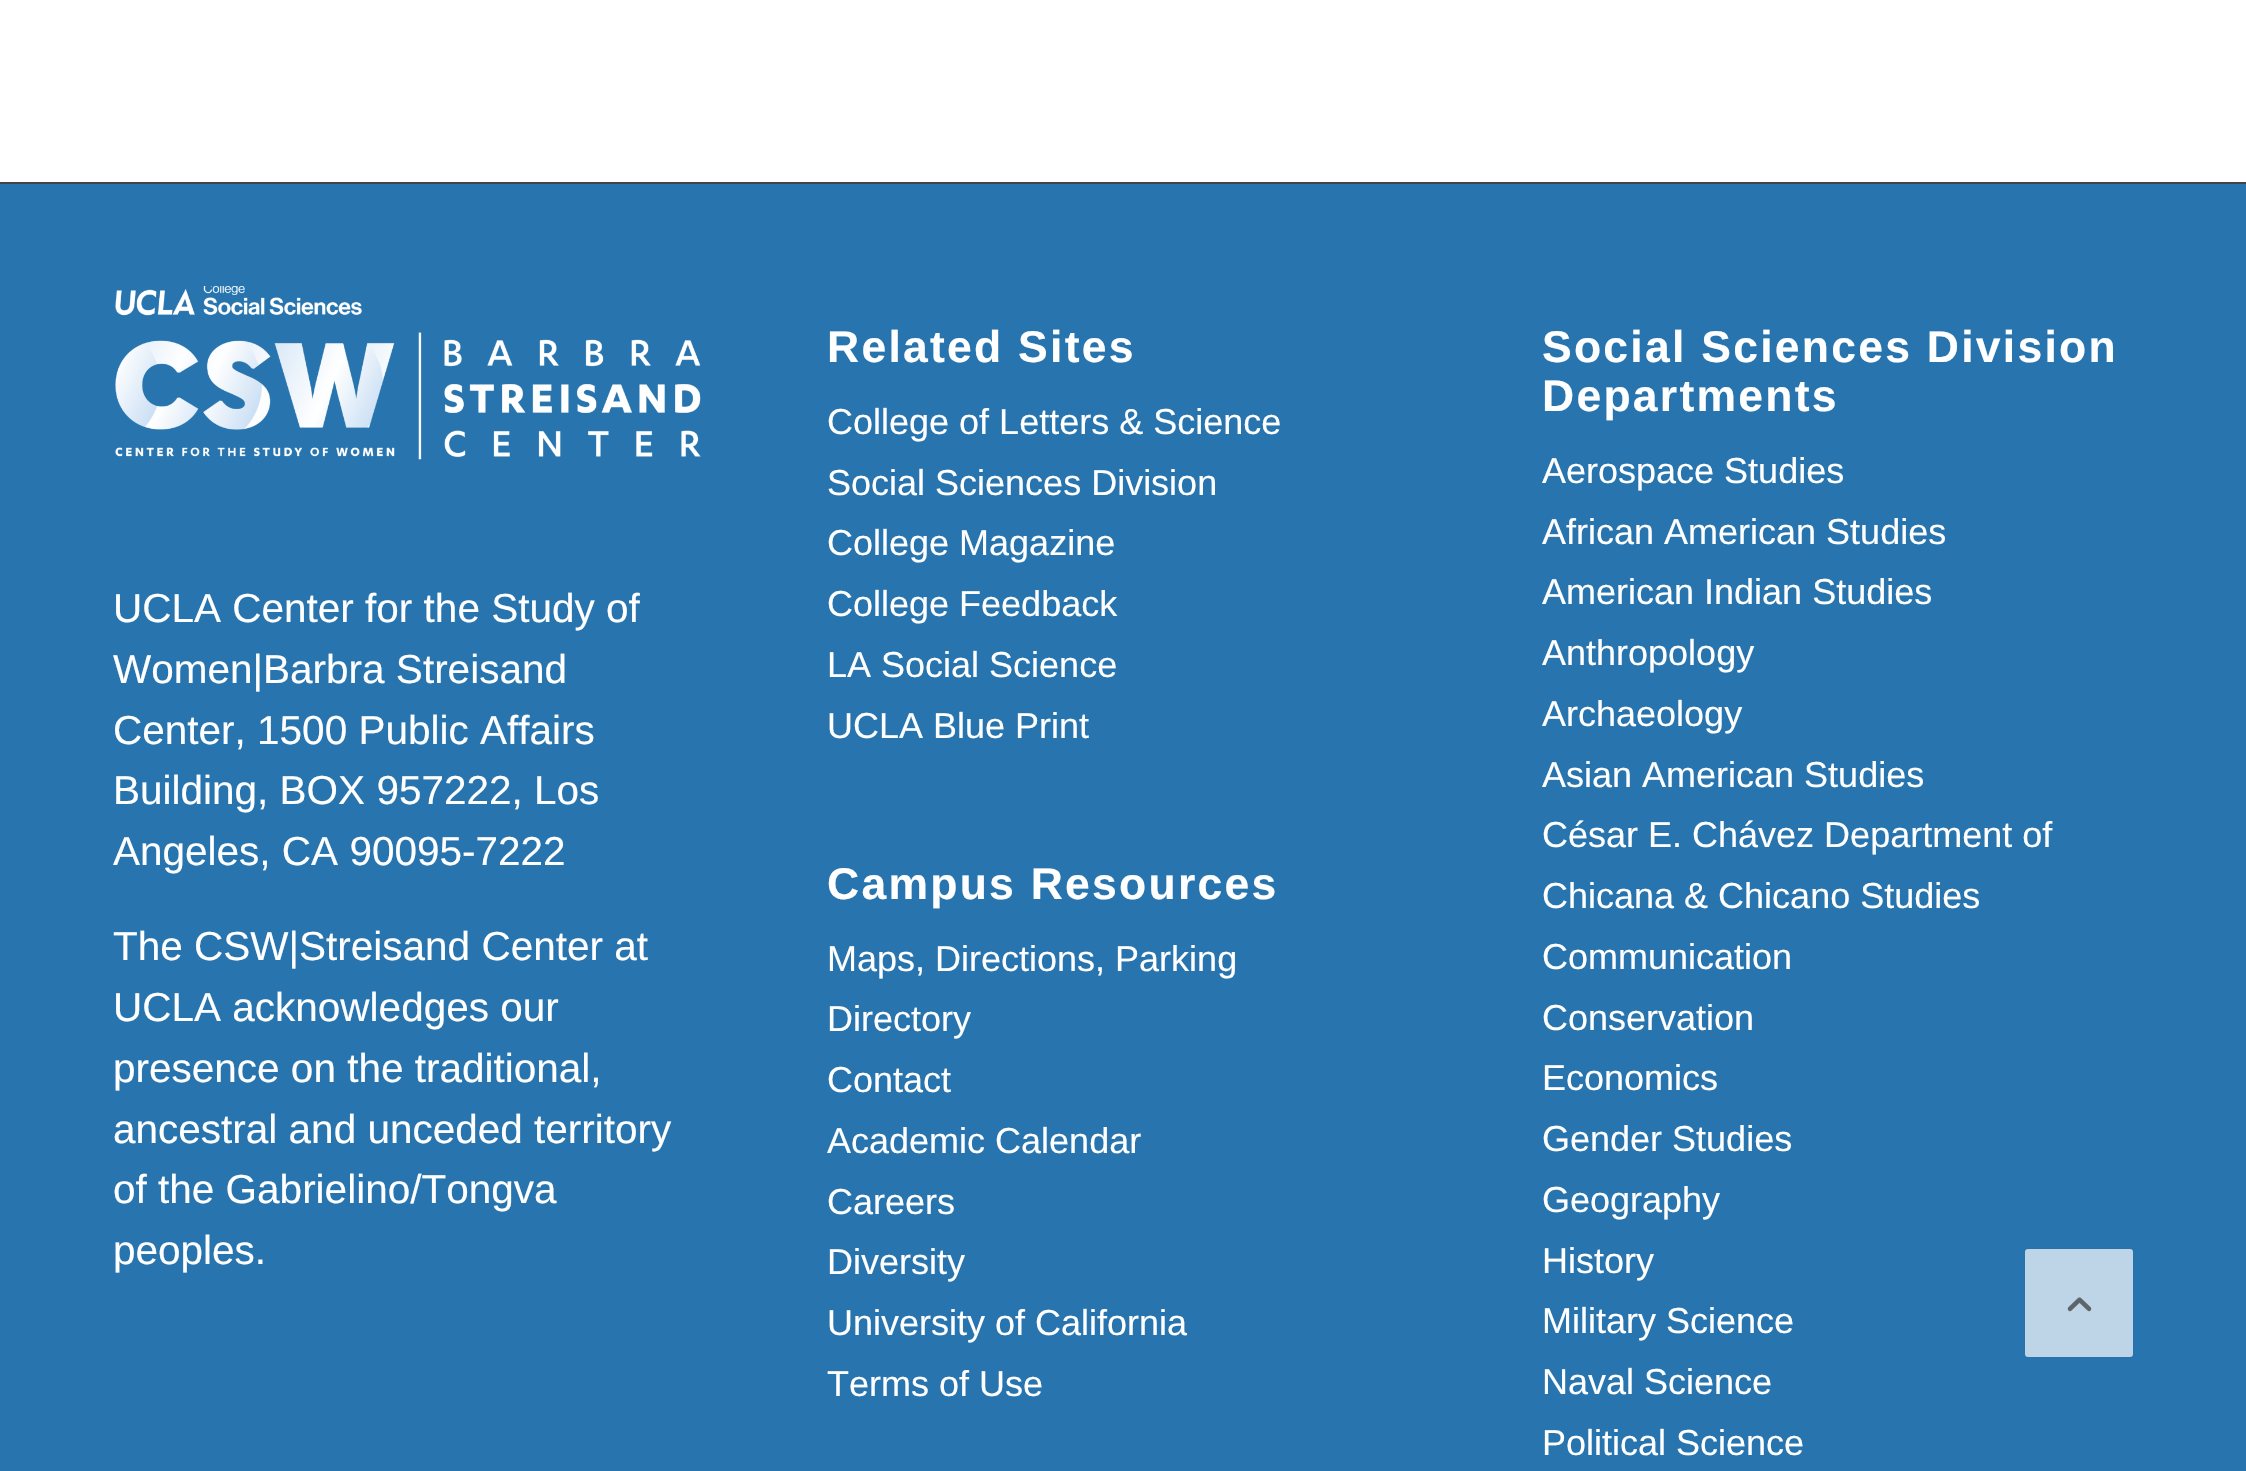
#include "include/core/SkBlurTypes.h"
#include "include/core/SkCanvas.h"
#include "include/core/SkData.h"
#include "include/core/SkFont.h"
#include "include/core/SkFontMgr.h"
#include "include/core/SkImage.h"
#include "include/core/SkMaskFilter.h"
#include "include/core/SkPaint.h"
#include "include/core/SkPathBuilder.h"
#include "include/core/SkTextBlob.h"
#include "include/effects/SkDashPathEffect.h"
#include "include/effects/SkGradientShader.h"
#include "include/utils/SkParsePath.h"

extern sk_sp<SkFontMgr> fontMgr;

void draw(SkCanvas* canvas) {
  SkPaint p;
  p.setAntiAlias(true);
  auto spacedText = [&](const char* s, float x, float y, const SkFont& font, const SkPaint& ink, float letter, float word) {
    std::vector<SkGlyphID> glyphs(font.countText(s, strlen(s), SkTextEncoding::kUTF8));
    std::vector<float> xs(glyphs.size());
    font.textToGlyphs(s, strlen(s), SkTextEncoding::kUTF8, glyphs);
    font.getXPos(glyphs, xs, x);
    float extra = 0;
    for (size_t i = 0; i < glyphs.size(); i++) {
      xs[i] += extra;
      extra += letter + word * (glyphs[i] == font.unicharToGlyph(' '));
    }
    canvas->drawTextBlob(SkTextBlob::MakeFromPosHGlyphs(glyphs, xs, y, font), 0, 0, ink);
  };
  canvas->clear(SK_ColorWHITE);
  p.setColor(SkColorSetRGB(39, 116, 174));
  canvas->drawRect(SkRect::MakeLTRB(0, 184, 2246, 1471), p);
  p.setColor(SkColorSetRGB(68, 68, 68));
  canvas->drawRect(SkRect::MakeLTRB(0, 182, 2246, 184), p);
  canvas->drawImageRect(SkImages::DeferredFromEncodedData(SkData::MakeFromFileName("images/1.png")), SkRect::MakeLTRB(115, 286, 701, 460), SkSamplingOptions());
  p.setColor(SkColorSetRGB(190, 213, 231));
  canvas->drawRoundRect(SkRect::MakeLTRB(2024, 1248, 2134, 1358), 4, 4, p);
  p.setStyle(SkPaint::kStroke_Style);
  p.setStrokeWidth(2);
  p.setColor(SkColorSetRGB(39, 115, 174));
  canvas->drawRoundRect(SkRect::MakeLTRB(2024, 1248, 2134, 1358), 4, 4, p);
  canvas->drawImageRect(SkImages::DeferredFromEncodedData(SkData::MakeFromFileName("images/2.png")), SkRect::MakeLTRB(2067, 1297, 2092, 1312), SkSamplingOptions());
  SkFont font1(fontMgr->matchFamilyStyle("Liberation Sans", SkFontStyle::Normal()), 40.5f);
  font1.setSubpixel(true);
  p.setStyle(SkPaint::kFill_Style);
  p.setColor(SK_ColorWHITE);
  canvas->drawString("UCLA Center for the Study of", 113, 622, font1, p);
  canvas->drawString("Women|Barbra Streisand", 113, 683, font1, p);
  canvas->drawString("Center, 1500 Public Affairs", 113, 744, font1, p);
  canvas->drawString("Building, BOX 957222, Los", 113, 804, font1, p);
  canvas->drawString("Angeles, CA 90095-7222", 113, 865, font1, p);
  canvas->drawString("The CSW|Streisand Center at", 113, 960, font1, p);
  canvas->drawString("UCLA acknowledges our", 113, 1021, font1, p);
  canvas->drawString("presence on the traditional,", 113, 1082, font1, p);
  canvas->drawString("ancestral and unceded territory", 113, 1143, font1, p);
  canvas->drawString("of the Gabrielino/Tongva", 113, 1203, font1, p);
  canvas->drawString("peoples.", 113, 1264, font1, p);
  SkFont font2(fontMgr->matchFamilyStyle("Liberation Sans", SkFontStyle::Bold()), 44.5f);
  font2.setSubpixel(true);
  spacedText("Related Sites", 827, 362, font2, p, 2.25f, 0);
  SkFont font3(fontMgr->matchFamilyStyle("Liberation Sans", SkFontStyle::Normal()), 36);
  font3.setSubpixel(true);
  canvas->drawString("College of Letters & Science", 827, 434, font3, p);
  canvas->drawString("Social Sciences Division", 827, 495, font3, p);
  canvas->drawString("College Magazine", 827, 555, font3, p);
  canvas->drawString("College Feedback", 827, 616, font3, p);
  canvas->drawString("LA Social Science", 827, 677, font3, p);
  canvas->drawString("UCLA Blue Print", 827, 738, font3, p);
  spacedText("Campus Resources", 827, 899, font2, p, 2.25f, 0);
  canvas->drawString("Maps, Directions, Parking", 827, 971, font3, p);
  canvas->drawString("Directory", 827, 1031, font3, p);
  canvas->drawString("Contact", 827, 1092, font3, p);
  canvas->drawString("Academic Calendar", 827, 1153, font3, p);
  canvas->drawString("Careers", 827, 1214, font3, p);
  canvas->drawString("Diversity", 827, 1274, font3, p);
  canvas->drawString("University of California", 827, 1335, font3, p);
  canvas->drawString("Terms of Use", 827, 1396, font3, p);
  spacedText("Social Sciences Division", 1542, 362, font2, p, 2.25f, 0);
  spacedText("Departments", 1542, 411, font2, p, 2.25f, 0);
  canvas->drawString("Aerospace Studies", 1542, 483, font3, p);
  canvas->drawString("African American Studies", 1542, 544, font3, p);
  canvas->drawString("American Indian Studies", 1542, 604, font3, p);
  canvas->drawString("Anthropology", 1542, 665, font3, p);
  canvas->drawString("Archaeology", 1542, 726, font3, p);
  canvas->drawString("Asian American Studies", 1542, 787, font3, p);
  canvas->drawString("César E. Chávez Department of", 1542, 847, font3, p);
  canvas->drawString("Chicana & Chicano Studies", 1542, 908, font3, p);
  canvas->drawString("Communication", 1542, 969, font3, p);
  canvas->drawString("Conservation", 1542, 1030, font3, p);
  canvas->drawString("Economics", 1542, 1090, font3, p);
  canvas->drawString("Gender Studies", 1542, 1151, font3, p);
  canvas->drawString("Geography", 1542, 1212, font3, p);
  canvas->drawString("History", 1542, 1273, font3, p);
  canvas->drawString("Military Science", 1542, 1333, font3, p);
  canvas->drawString("Naval Science", 1542, 1394, font3, p);
  canvas->drawString("Political Science", 1542, 1455, font3, p);
}
